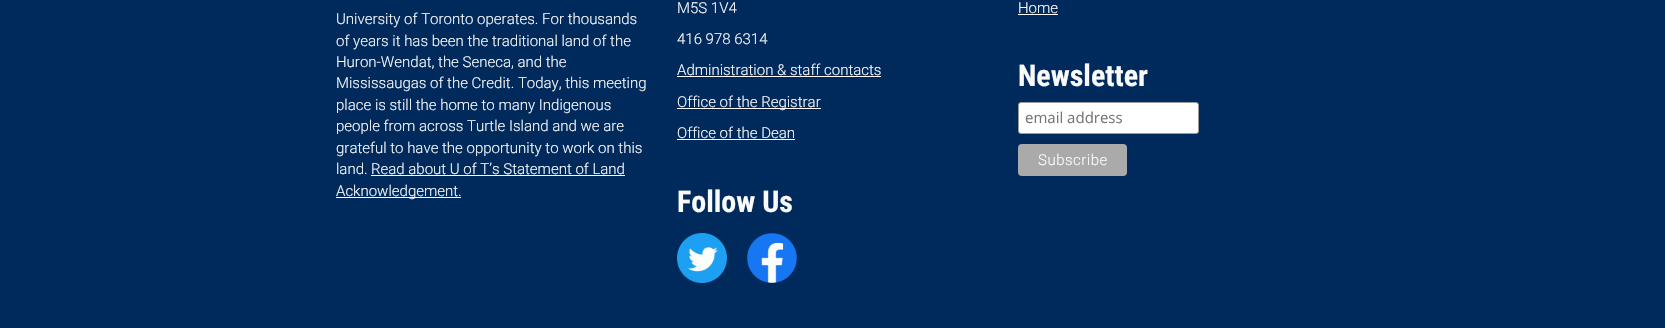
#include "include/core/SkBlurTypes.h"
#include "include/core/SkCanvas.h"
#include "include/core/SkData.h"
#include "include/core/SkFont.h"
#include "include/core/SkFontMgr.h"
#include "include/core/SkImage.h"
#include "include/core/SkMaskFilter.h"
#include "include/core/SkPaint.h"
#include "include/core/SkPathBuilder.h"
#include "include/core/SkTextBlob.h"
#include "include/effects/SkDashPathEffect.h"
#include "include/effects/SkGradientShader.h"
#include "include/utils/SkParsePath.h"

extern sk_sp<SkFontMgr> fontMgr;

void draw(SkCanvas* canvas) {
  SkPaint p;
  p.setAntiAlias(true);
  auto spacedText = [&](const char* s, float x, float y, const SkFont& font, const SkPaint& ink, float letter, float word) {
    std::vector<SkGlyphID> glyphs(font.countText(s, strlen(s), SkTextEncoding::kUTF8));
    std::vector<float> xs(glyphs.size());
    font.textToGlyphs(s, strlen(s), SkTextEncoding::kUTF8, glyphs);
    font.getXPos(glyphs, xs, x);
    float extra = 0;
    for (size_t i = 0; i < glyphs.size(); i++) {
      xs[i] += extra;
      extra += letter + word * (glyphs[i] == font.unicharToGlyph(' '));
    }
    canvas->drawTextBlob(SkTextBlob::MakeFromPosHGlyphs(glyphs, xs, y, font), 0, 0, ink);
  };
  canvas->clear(SkColorSetRGB(0, 42, 92));
  p.setColor(SK_ColorWHITE);
  canvas->drawRect(SkRect::MakeLTRB(371, 175, 625, 176), p);
  canvas->drawRect(SkRect::MakeLTRB(336, 197, 461, 198), p);
  canvas->drawRect(SkRect::MakeLTRB(677, 76, 881, 77), p);
  canvas->drawRect(SkRect::MakeLTRB(677, 108, 821, 109), p);
  canvas->drawRect(SkRect::MakeLTRB(677, 139, 795, 140), p);
  canvas->drawImageRect(SkImages::DeferredFromEncodedData(SkData::MakeFromFileName("images/1.png")), SkRect::MakeLTRB(677, 233, 727, 283), SkSamplingOptions());
  canvas->drawImageRect(SkImages::DeferredFromEncodedData(SkData::MakeFromFileName("images/2.png")), SkRect::MakeLTRB(747, 233, 797, 283), SkSamplingOptions());
  canvas->drawRect(SkRect::MakeLTRB(1018, 14, 1058, 15), p);
  canvas->drawRoundRect(SkRect::MakeLTRB(1018.5f, 102.5f, 1198.5f, 133.5f), 2.5f, 2.5f, p);
  p.setStyle(SkPaint::kStroke_Style);
  p.setStrokeWidth(1);
  p.setColor(SkColorSetRGB(153, 153, 153));
  canvas->drawRoundRect(SkRect::MakeLTRB(1018.5f, 102.5f, 1198.5f, 133.5f), 2.5f, 2.5f, p);
  p.setStyle(SkPaint::kFill_Style);
  p.setColor(SkColorSetRGB(170, 170, 170));
  canvas->drawRoundRect(SkRect::MakeLTRB(1018, 144, 1127, 176), 4, 4, p);
  SkFont font1(fontMgr->matchFamilyStyle("Roboto", SkFontStyle(300, SkFontStyle::kNormal_Width, SkFontStyle::kUpright_Slant)), 15);
  font1.setSubpixel(true);
  p.setColor(SkColorSetRGB(250, 250, 250));
  canvas->drawString("University of Toronto operates. For thousands", 336, 24, font1, p);
  canvas->drawString("of years it has been the traditional land of the", 336, 46, font1, p);
  canvas->drawString("Huron-Wendat, the Seneca, and the", 336, 67, font1, p);
  canvas->drawString("Mississaugas of the Credit. Today, this meeting", 336, 88, font1, p);
  canvas->drawString("place is still the home to many Indigenous", 336, 110, font1, p);
  canvas->drawString("people from across Turtle Island and we are", 336, 131, font1, p);
  canvas->drawString("grateful to have the opportunity to work on this", 336, 153, font1, p);
  canvas->drawString("land.", 336, 174, font1, p);
  canvas->drawString("Read about U of T’s Statement of Land", 371, 174, font1, p);
  canvas->drawString("Acknowledgement.", 336, 196, font1, p);
  canvas->drawString("M5S 1V4", 677, 13, font1, p);
  canvas->drawString("416 978 6314", 677, 44, font1, p);
  canvas->drawString("Administration & staff contacts", 677, 75, font1, p);
  canvas->drawString("Office of the Registrar", 677, 107, font1, p);
  canvas->drawString("Office of the Dean", 677, 138, font1, p);
  SkFont font2(fontMgr->matchFamilyStyle("Roboto Condensed", SkFontStyle::Bold()), 30);
  font2.setSubpixel(true);
  canvas->drawString("Follow Us", 677, 212, font2, p);
  canvas->drawString("Home", 1018, 13, font1, p);
  canvas->drawString("Newsletter", 1018, 86, font2, p);
  SkFont font3(fontMgr->matchFamilyStyle("Open Sans", SkFontStyle::Normal()), 15);
  font3.setSubpixel(true);
  p.setColor(SkColorSetRGB(117, 117, 117));
  canvas->drawString("email address", 1025, 123, font3, p);
  p.setColor(SkColorSetRGB(250, 250, 250));
  spacedText("Subscribe", 1038, 165, font1, p, 0.5f, 0);
}
